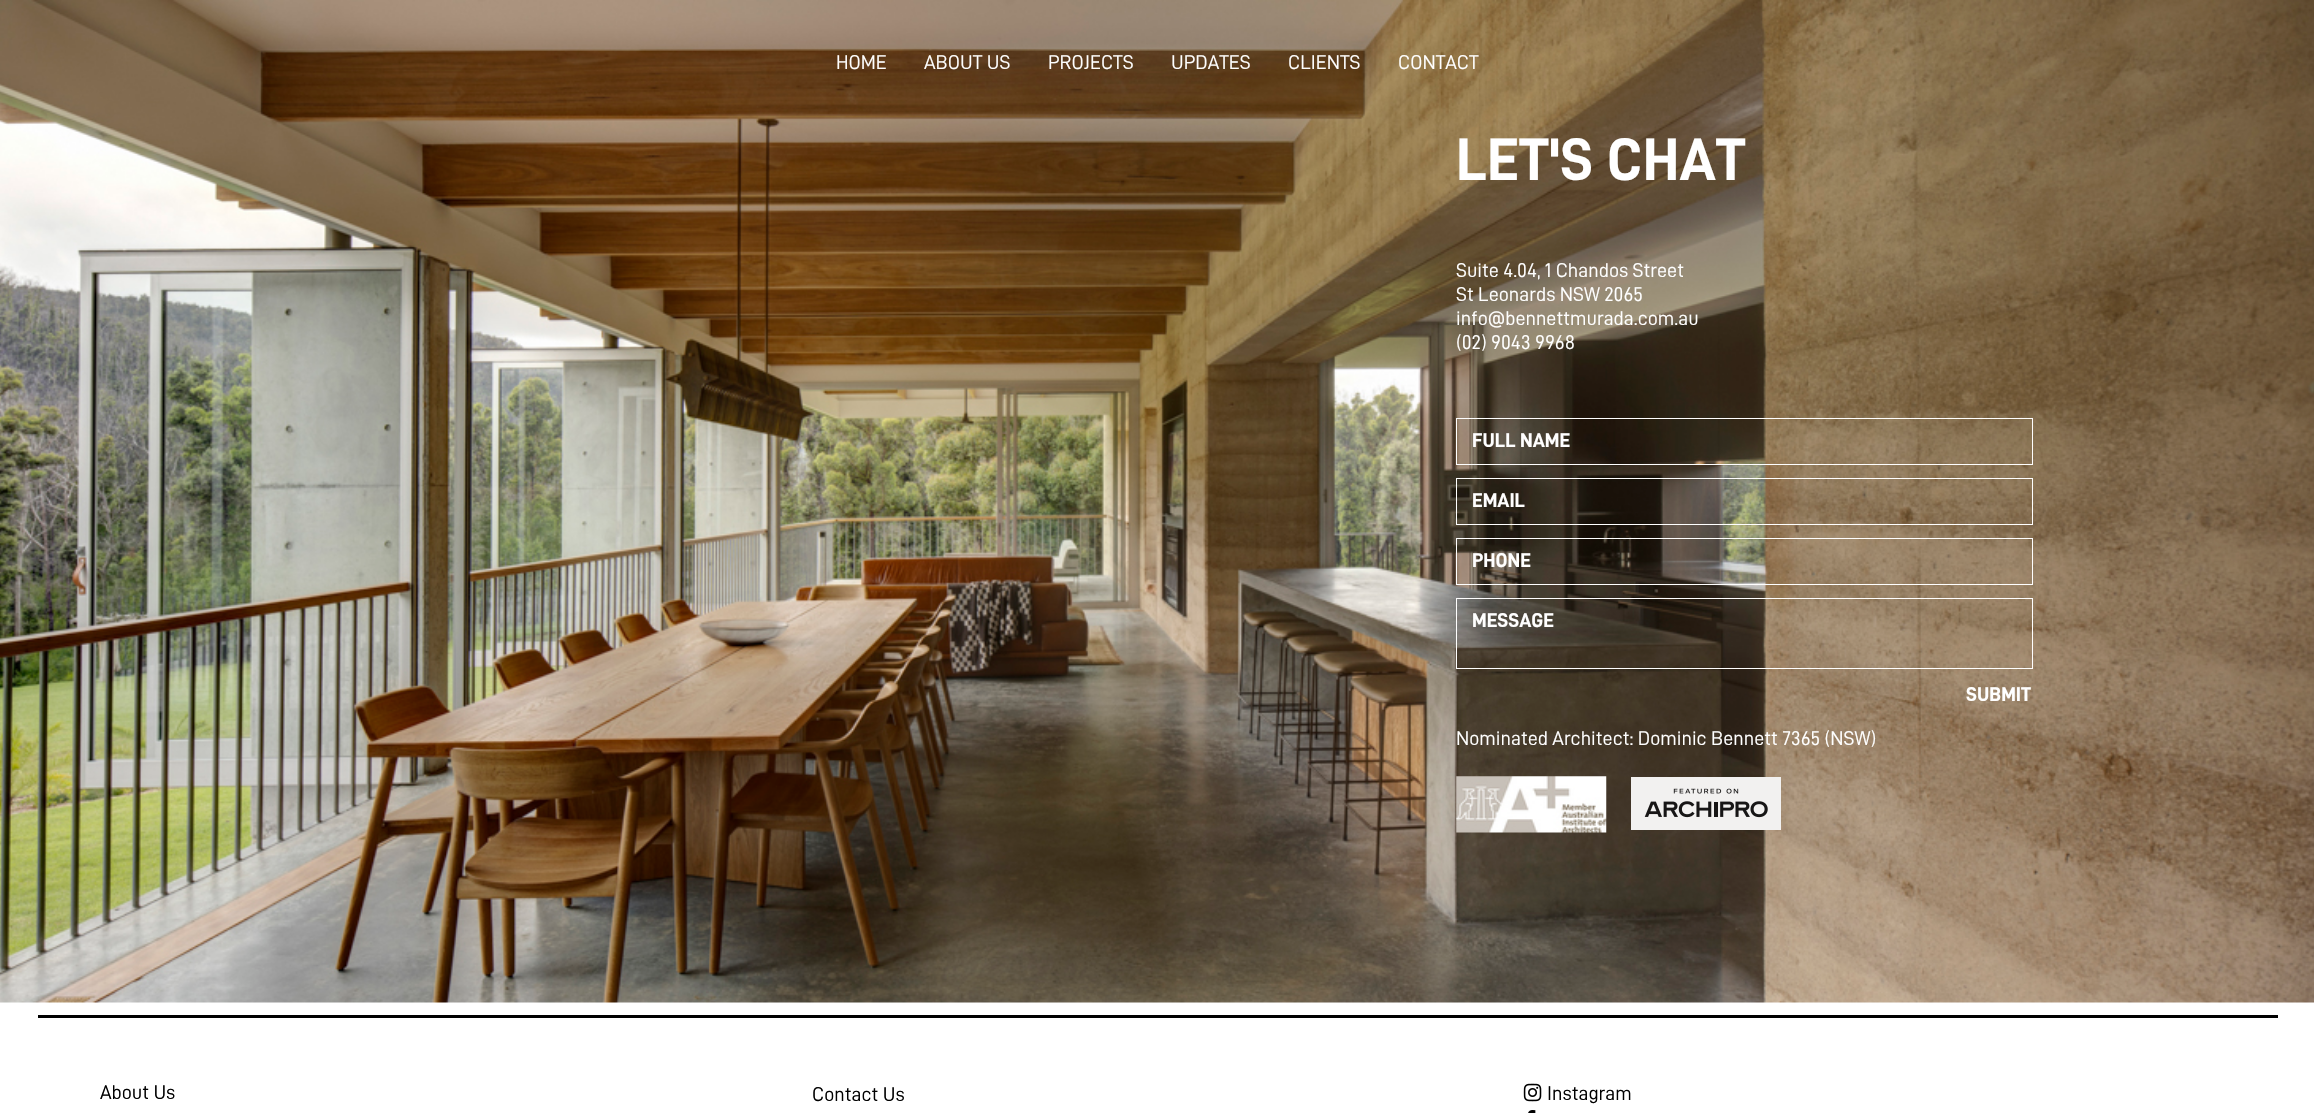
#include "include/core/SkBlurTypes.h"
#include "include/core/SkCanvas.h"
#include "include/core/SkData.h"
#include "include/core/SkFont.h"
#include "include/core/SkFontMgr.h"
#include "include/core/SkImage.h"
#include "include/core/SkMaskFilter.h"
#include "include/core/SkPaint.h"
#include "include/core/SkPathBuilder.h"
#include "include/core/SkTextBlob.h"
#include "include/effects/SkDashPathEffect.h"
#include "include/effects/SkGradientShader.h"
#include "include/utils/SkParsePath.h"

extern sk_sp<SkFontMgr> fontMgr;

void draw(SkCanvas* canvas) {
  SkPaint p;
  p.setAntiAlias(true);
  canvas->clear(SK_ColorWHITE);
  canvas->drawImageRect(SkImages::DeferredFromEncodedData(SkData::MakeFromFileName("images/1.png")), SkRect::MakeLTRB(0, 0, 2314, 1003), SkSamplingOptions());
  p.setStyle(SkPaint::kStroke_Style);
  p.setStrokeWidth(1);
  p.setColor(SK_ColorWHITE);
  canvas->drawRect(SkRect::MakeLTRB(1456.5f, 418.5f, 2032.5f, 464.5f), p);
  canvas->drawRect(SkRect::MakeLTRB(1456.5f, 478.5f, 2032.5f, 524.5f), p);
  canvas->drawRect(SkRect::MakeLTRB(1456.5f, 538.5f, 2032.5f, 584.5f), p);
  canvas->drawRect(SkRect::MakeLTRB(1456.5f, 598.5f, 2032.5f, 668.5f), p);
  canvas->drawImageRect(SkImages::DeferredFromEncodedData(SkData::MakeFromFileName("images/2.png")), SkRect::MakeLTRB(1456, 776, 1607, 833), SkSamplingOptions());
  canvas->drawImageRect(SkImages::DeferredFromEncodedData(SkData::MakeFromFileName("images/3.png")), SkRect::MakeLTRB(1631, 777, 1781, 830), SkSamplingOptions());
  p.setStyle(SkPaint::kFill_Style);
  p.setColor(SK_ColorBLACK);
  canvas->drawRect(SkRect::MakeLTRB(38, 1015, 2278, 1018), p);
  canvas->drawImageRect(SkImages::DeferredFromEncodedData(SkData::MakeFromFileName("images/4.png")), SkRect::MakeLTRB(1523, 1083, 1542, 1102), SkSamplingOptions());
  canvas->drawImageRect(SkImages::DeferredFromEncodedData(SkData::MakeFromFileName("images/5.png")), SkRect::MakeLTRB(1528, 1110, 1536, 1113), SkSamplingOptions());
  SkFont font1(fontMgr->matchFamilyStyle("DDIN", SkFontStyle::Normal()), 20);
  font1.setSubpixel(true);
  p.setColor(SK_ColorWHITE);
  canvas->drawString("HOME", 836, 69, font1, p);
  canvas->drawString("ABOUT US", 924, 69, font1, p);
  canvas->drawString("PROJECTS", 1048, 69, font1, p);
  canvas->drawString("UPDATES", 1171, 69, font1, p);
  canvas->drawString("CLIENTS", 1288, 69, font1, p);
  canvas->drawString("CONTACT", 1398, 69, font1, p);
  SkFont font2(fontMgr->matchFamilyStyle("DDIN", SkFontStyle::Bold()), 60);
  font2.setSubpixel(true);
  canvas->drawString("LET'S CHAT", 1456, 180, font2, p);
  canvas->drawString("Suite 4.04, 1 Chandos Street", 1456, 277, font1, p);
  canvas->drawString("St Leonards NSW 2065", 1456, 301, font1, p);
  canvas->drawString("info@bennettmurada.com.au", 1456, 325, font1, p);
  canvas->drawString("(02) 9043 9968", 1456, 349, font1, p);
  SkFont font3(fontMgr->matchFamilyStyle("DDIN", SkFontStyle::Bold()), 20);
  font3.setSubpixel(true);
  canvas->drawString("FULL NAME", 1472, 447, font3, p);
  canvas->drawString("EMAIL", 1472, 507, font3, p);
  canvas->drawString("PHONE", 1472, 567, font3, p);
  canvas->drawString("MESSAGE", 1472, 627, font3, p);
  canvas->drawString("SUBMIT", 1966, 701, font3, p);
  canvas->drawString("Nominated Architect: Dominic Bennett 7365 (NSW)", 1456, 745, font1, p);
  p.setColor(SK_ColorBLACK);
  canvas->drawString("About Us", 100, 1099, font1, p);
  canvas->drawString("Contact Us", 812, 1101, font1, p);
  canvas->drawString("Instagram", 1547, 1100, font1, p);
}
